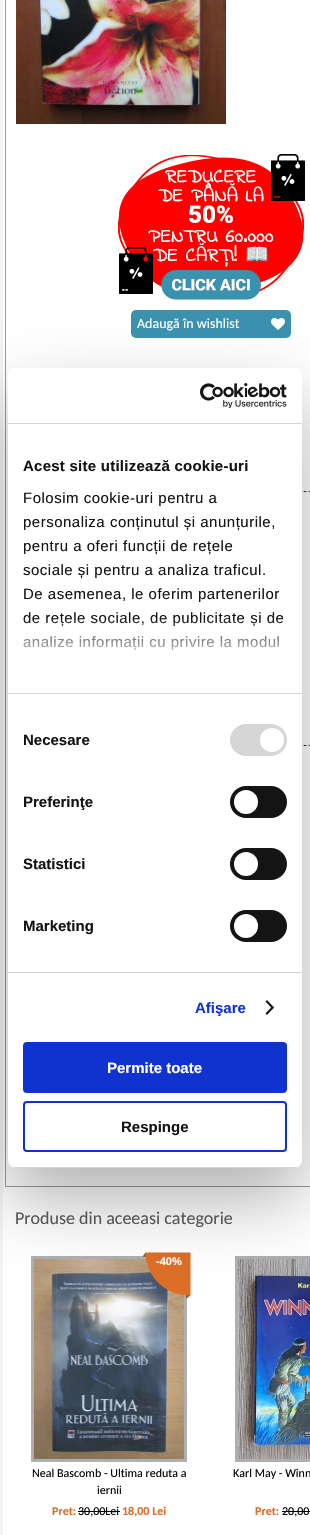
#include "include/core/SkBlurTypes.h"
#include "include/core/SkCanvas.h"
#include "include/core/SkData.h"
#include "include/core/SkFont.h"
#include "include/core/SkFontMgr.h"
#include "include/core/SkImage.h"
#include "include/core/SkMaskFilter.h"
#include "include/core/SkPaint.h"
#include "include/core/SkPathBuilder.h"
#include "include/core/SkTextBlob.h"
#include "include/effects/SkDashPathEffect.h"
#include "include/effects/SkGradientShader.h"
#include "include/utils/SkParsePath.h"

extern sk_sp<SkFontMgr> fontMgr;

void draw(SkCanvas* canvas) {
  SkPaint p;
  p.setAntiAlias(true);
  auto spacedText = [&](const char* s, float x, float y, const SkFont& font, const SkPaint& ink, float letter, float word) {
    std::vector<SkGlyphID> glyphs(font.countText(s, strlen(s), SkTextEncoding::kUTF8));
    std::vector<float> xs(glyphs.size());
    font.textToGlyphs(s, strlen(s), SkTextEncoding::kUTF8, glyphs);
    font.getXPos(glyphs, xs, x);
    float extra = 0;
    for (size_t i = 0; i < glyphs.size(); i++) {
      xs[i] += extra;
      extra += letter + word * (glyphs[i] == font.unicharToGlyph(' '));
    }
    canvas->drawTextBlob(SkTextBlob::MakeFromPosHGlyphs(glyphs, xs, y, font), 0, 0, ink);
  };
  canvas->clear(SkColorSetRGB(243, 243, 243));
  p.setColor(SK_ColorWHITE);
  canvas->drawRect(SkRect::MakeLTRB(3, 0, 310, 1535), p);
  p.setStyle(SkPaint::kStroke_Style);
  p.setStrokeWidth(1);
  p.setColor(SkColorSetRGB(153, 153, 153));
  canvas->drawRect(SkRect::MakeLTRB(5.5f, -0.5f, 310.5f, 1186.5f), p);
  canvas->drawImageRect(SkImages::DeferredFromEncodedData(SkData::MakeFromFileName("images/1.png")), SkRect::MakeLTRB(16, 0, 226, 124), SkSamplingOptions());
  canvas->drawImageRect(SkImages::DeferredFromEncodedData(SkData::MakeFromFileName("images/2.png")), SkRect::MakeLTRB(118, 154, 305, 300), SkSamplingOptions());
  p.setStyle(SkPaint::kFill_Style);
  p.setColor(SkColorSetRGB(58, 146, 174));
  canvas->drawRoundRect(SkRect::MakeLTRB(131, 310, 291, 338), 5, 5, p);
  canvas->drawImageRect(SkImages::DeferredFromEncodedData(SkData::MakeFromFileName("images/3.png")), SkRect::MakeLTRB(271, 318, 285, 330), SkSamplingOptions());
  p.setStyle(SkPaint::kStroke_Style);
  p.setColor(SkColorSetRGB(51, 51, 51));
  p.setPathEffect(SkDashPathEffect::Make({{3, 2.01f}}, 0));
  canvas->drawPath(SkPathBuilder().moveTo(28, 491.5f).lineTo(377, 491.5f).detach(), p);
  p.setPathEffect(nullptr);
  p.setPathEffect(SkDashPathEffect::Make({{3, 2.01f}}, 0));
  canvas->drawPath(SkPathBuilder().moveTo(28, 745.5f).lineTo(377, 745.5f).detach(), p);
  p.setPathEffect(nullptr);
  p.setStrokeWidth(3);
  p.setColor(SkColorSetRGB(175, 175, 175));
  canvas->drawRect(SkRect::MakeLTRB(32.5f, 1257.5f, 185.5f, 1460.5f), p);
  canvas->drawImageRect(SkImages::DeferredFromEncodedData(SkData::MakeFromFileName("images/5.png")), SkRect::MakeLTRB(34, 1259, 184, 1459), SkSamplingOptions());
  canvas->drawImageRect(SkImages::DeferredFromEncodedData(SkData::MakeFromFileName("images/4.png")), SkRect::MakeLTRB(143, 1252, 191, 1299), SkSamplingOptions());
  p.setStyle(SkPaint::kFill_Style);
  p.setColor(SK_ColorBLACK);
  canvas->drawRect(SkRect::MakeLTRB(78, 1511, 120, 1512), p);
  p.setStyle(SkPaint::kStroke_Style);
  p.setColor(SkColorSetRGB(175, 175, 175));
  canvas->drawRect(SkRect::MakeLTRB(236.5f, 1257.5f, 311.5f, 1460.5f), p);
  canvas->drawImageRect(SkImages::DeferredFromEncodedData(SkData::MakeFromFileName("images/6.png")), SkRect::MakeLTRB(238, 1259, 310, 1459), SkSamplingOptions());
  p.setStyle(SkPaint::kFill_Style);
  p.setColor(SK_ColorBLACK);
  canvas->drawRect(SkRect::MakeLTRB(282, 1511, 310, 1512), p);
  p.setColor(SkColorSetARGB(77, 0, 0, 0));
  p.setMaskFilter(SkMaskFilter::MakeBlur(kNormal_SkBlurStyle, 34));
  canvas->drawRoundRect(SkRect::MakeLTRB(8, 400, 302, 1200), 8, 8, p);
  p.setMaskFilter(nullptr);
  p.setColor(SK_ColorWHITE);
  canvas->drawRoundRect(SkRect::MakeLTRB(8, 368, 302, 1168), 8, 8, p);
  p.setColor(SkColorSetRGB(214, 214, 214));
  canvas->drawRect(SkRect::MakeLTRB(8, 423, 302, 424), p);
  canvas->drawImageRect(SkImages::DeferredFromEncodedData(SkData::MakeFromFileName("images/7.png")), SkRect::MakeLTRB(200, 383, 287, 408), SkSamplingOptions());
  canvas->drawRect(SkRect::MakeLTRB(8, 693, 302, 694), p);
  canvas->drawRect(SkRect::MakeLTRB(8, 972, 302, 973), p);
  canvas->drawRoundRect(SkRect::MakeLTRB(230, 724, 287, 756), 16, 16, p);
  p.setColor(SK_ColorWHITE);
  canvas->drawCircle(272, 740, 12, p);
  p.setColor(SkColorSetRGB(20, 20, 20));
  canvas->drawRoundRect(SkRect::MakeLTRB(230, 786, 287, 818), 16, 16, p);
  p.setColor(SK_ColorWHITE);
  canvas->drawCircle(246, 802, 12, p);
  p.setColor(SkColorSetRGB(20, 20, 20));
  canvas->drawRoundRect(SkRect::MakeLTRB(230, 848, 287, 880), 16, 16, p);
  p.setColor(SK_ColorWHITE);
  canvas->drawCircle(246, 864, 12, p);
  p.setColor(SkColorSetRGB(20, 20, 20));
  canvas->drawRoundRect(SkRect::MakeLTRB(230, 910, 287, 942), 16, 16, p);
  p.setColor(SK_ColorWHITE);
  canvas->drawCircle(246, 926, 12, p);
  p.setColor(SkColorSetRGB(20, 20, 20));
  canvas->drawPath(SkPathBuilder().moveTo(267, 1000).lineTo(274, 1007.5f).lineTo(272.5f, 1009).lineTo(265.5f, 1001.5f).close().detach(), p);
  canvas->drawPath(SkPathBuilder().moveTo(272.5f, 1006).lineTo(274, 1007.5f).lineTo(267, 1015).lineTo(265.5f, 1013.5f).close().detach(), p);
  canvas->save();
  canvas->clipPath(SkPathBuilder().moveTo(16, 368).lineTo(294, 368).cubicTo(298.5f, 368, 302, 371.5f, 302, 376).lineTo(302, 1160).cubicTo(302, 1164.5f, 298.5f, 1168, 294, 1168).lineTo(16, 1168).cubicTo(11.5f, 1168, 8, 1164.5f, 8, 1160).lineTo(8, 376).cubicTo(8, 371.5f, 11.5f, 368, 16, 368).close().detach(), true);
  p.setColor(SkColorSetRGB(214, 214, 214));
  canvas->drawRect(SkRect::MakeLTRB(8, 1167, 302, 1168), p);
  canvas->restore();
  p.setColor(SkColorSetRGB(16, 50, 207));
  canvas->drawRoundRect(SkRect::MakeLTRB(24, 1043, 286, 1092), 3, 3, p);
  p.setStyle(SkPaint::kStroke_Style);
  p.setStrokeWidth(2);
  canvas->drawRoundRect(SkRect::MakeLTRB(24, 1043, 286, 1092), 3, 3, p);
  canvas->drawRoundRect(SkRect::MakeLTRB(24, 1102, 286, 1151), 3, 3, p);
  SkFont font1(fontMgr->matchFamilyStyle("Carlito", SkFontStyle::Normal()), 14);
  font1.setSubpixel(true);
  p.setStyle(SkPaint::kFill_Style);
  p.setColor(SK_ColorWHITE);
  canvas->drawString("Adaugă în wishlist", 137, 328, font1, p);
  SkFont font2(fontMgr->matchFamilyStyle("Carlito", SkFontStyle::Normal()), 18);
  font2.setSubpixel(true);
  p.setColor(SkColorSetRGB(85, 85, 85));
  canvas->drawString("Produse din aceeasi categorie", 15, 1224, font2, p);
  SkFont font3(fontMgr->matchFamilyStyle("Liberation Sans", SkFontStyle::Bold()), 11);
  font3.setSubpixel(true);
  p.setColor(SK_ColorWHITE);
  canvas->drawString("-40%", 156, 1265, font3, p);
  SkFont font4(fontMgr->matchFamilyStyle("Carlito", SkFontStyle::Normal()), 12);
  font4.setSubpixel(true);
  p.setColor(SK_ColorBLACK);
  canvas->drawString("Neal Bascomb - Ultima reduta a", 32, 1477, font4, p);
  canvas->drawString("iernii", 97, 1494, font4, p);
  SkFont font5(fontMgr->matchFamilyStyle("Carlito", SkFontStyle::Bold()), 12);
  font5.setSubpixel(true);
  p.setColor(SkColorSetRGB(218, 108, 39));
  canvas->drawString("Pret:", 52, 1515, font5, p);
  p.setColor(SK_ColorBLACK);
  canvas->drawString("30,00Lei", 78, 1515, font4, p);
  p.setColor(SkColorSetRGB(218, 108, 39));
  canvas->drawString("18,00 Lei", 122, 1515, font5, p);
  p.setColor(SK_ColorBLACK);
  canvas->drawString("Karl May - Winn", 233, 1477, font4, p);
  p.setColor(SkColorSetRGB(218, 108, 39));
  canvas->drawString("Pret:", 255, 1515, font5, p);
  p.setColor(SK_ColorBLACK);
  canvas->drawString("20,00", 282, 1515, font4, p);
  SkFont font6(fontMgr->matchFamilyStyle("Liberation Sans", SkFontStyle::Bold()), 15);
  font6.setSubpixel(true);
  p.setColor(SkColorSetRGB(20, 20, 20));
  spacedText("Acest site utilizează cookie-uri", 23, 471, font6, p, 0.25f, 0);
  SkFont font7(fontMgr->matchFamilyStyle("Liberation Sans", SkFontStyle::Normal()), 15);
  font7.setSubpixel(true);
  spacedText("Folosim cookie-uri pentru a", 23, 503, font7, p, 0.5f, 0);
  spacedText("personaliza conținutul și anunțurile,", 23, 527, font7, p, 0.5f, 0);
  spacedText("pentru a oferi funcții de rețele", 23, 551, font7, p, 0.5f, 0);
  spacedText("sociale și pentru a analiza traficul.", 23, 575, font7, p, 0.5f, 0);
  spacedText("De asemenea, le oferim partenerilor", 23, 599, font7, p, 0.5f, 0);
  spacedText("de rețele sociale, de publicitate și de", 23, 623, font7, p, 0.5f, 0);
  spacedText("analize informații cu privire la modul", 23, 647, font7, p, 0.5f, 0);
  {
    const SkColor colors[] = {SK_ColorWHITE, SkColorSetARGB(204, 255, 255, 255), SkColorSetARGB(0, 255, 255, 255)};
    const float stops[] = {0, 0.5f, 1};
    const SkPoint ends[] = {{149, 693}, {149, 618}};
    p.setShader(SkGradientShader::MakeLinear(ends, colors, stops, 3, SkTileMode::kClamp));
    p.setAlpha(255);
  }
  canvas->drawRect(SkRect::MakeLTRB(23, 619, 283, 651), p);
  p.setShader(nullptr);
  p.setColor(SkColorSetRGB(20, 20, 20));
  canvas->drawString("Necesare", 23, 745, font6, p);
  canvas->drawString("Preferinţe", 23, 807, font6, p);
  canvas->drawString("Statistici", 23, 869, font6, p);
  canvas->drawString("Marketing", 23, 931, font6, p);
  p.setColor(SkColorSetRGB(16, 50, 207));
  canvas->drawString("Afişare", 195, 1013, font6, p);
  p.setColor(SK_ColorWHITE);
  canvas->drawString("Permite toate", 107, 1073, font6, p);
  p.setColor(SkColorSetRGB(20, 20, 20));
  canvas->drawString("Respinge", 121, 1132, font6, p);
}
